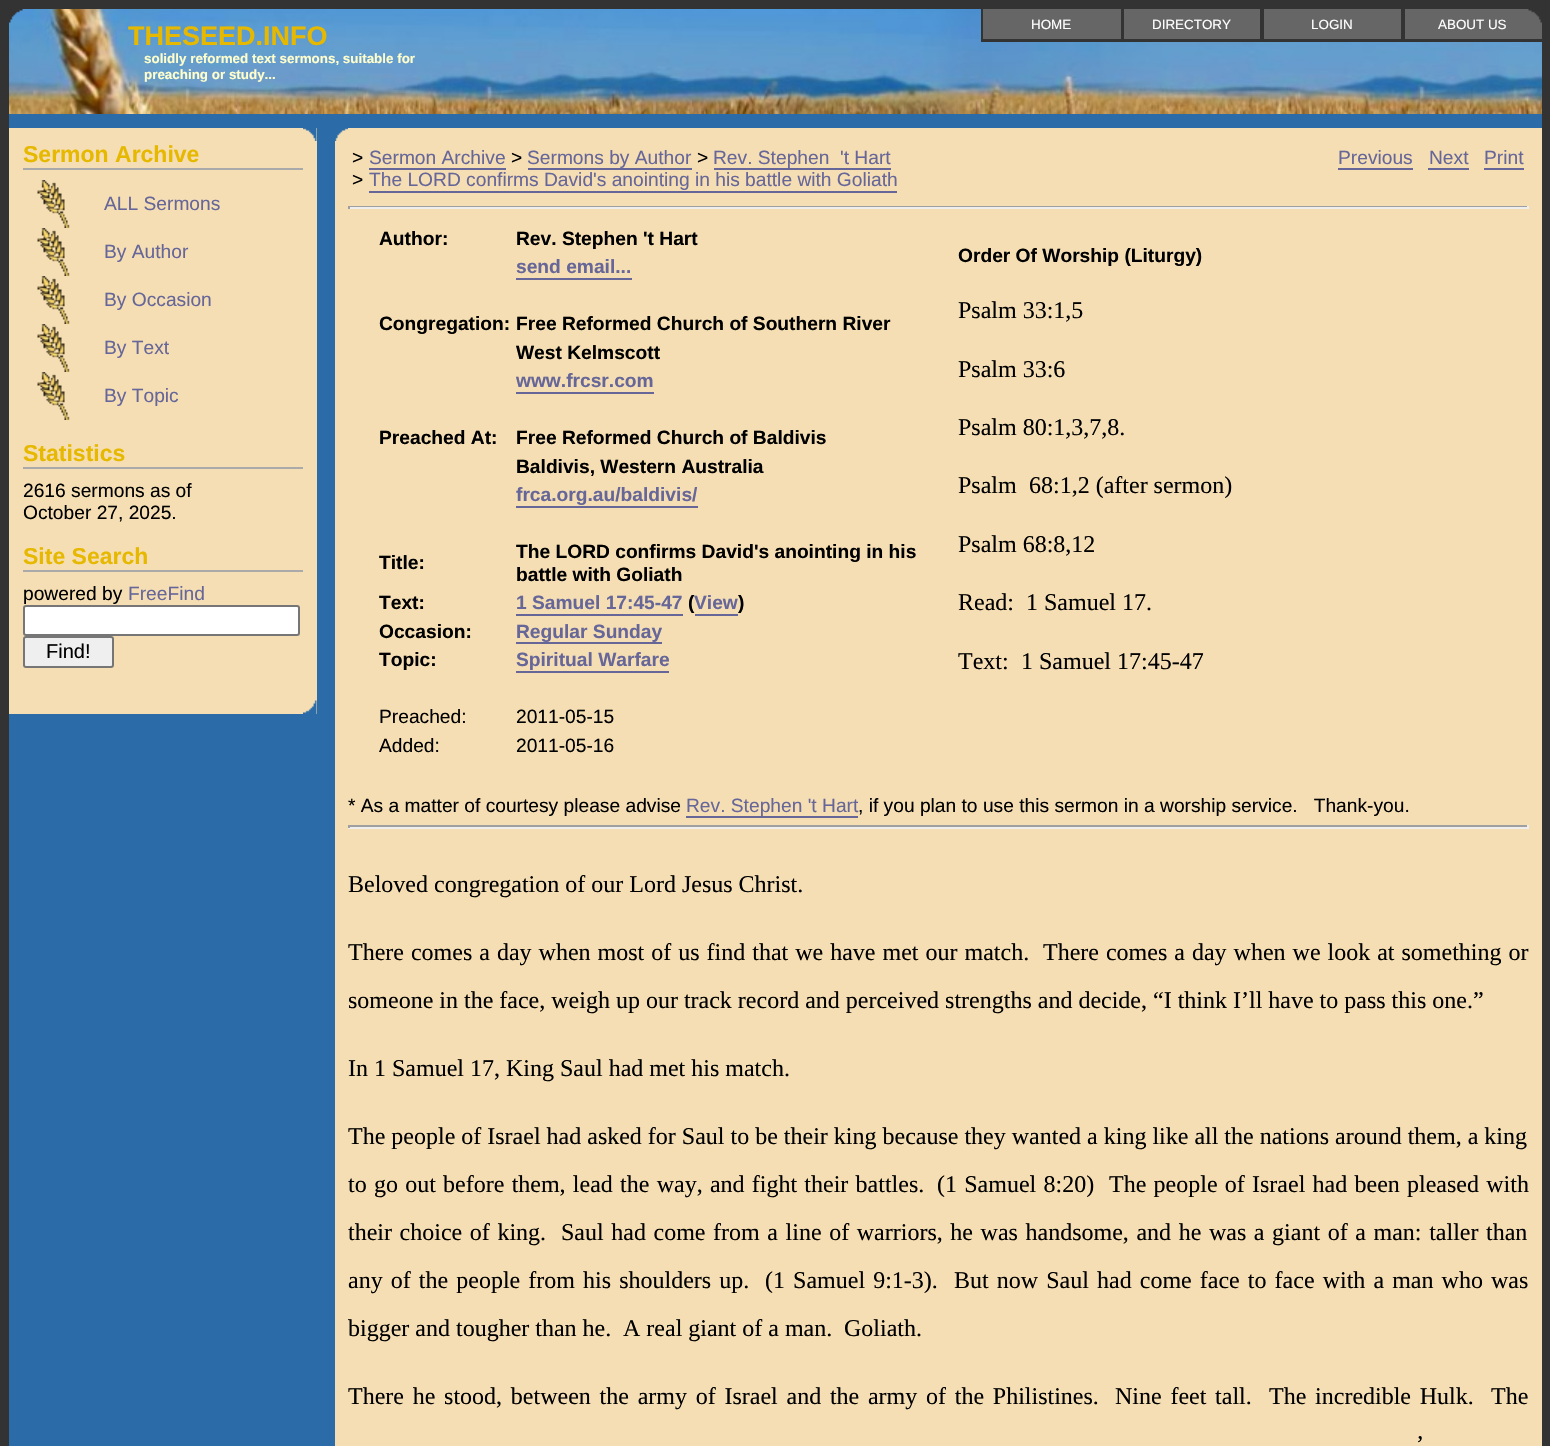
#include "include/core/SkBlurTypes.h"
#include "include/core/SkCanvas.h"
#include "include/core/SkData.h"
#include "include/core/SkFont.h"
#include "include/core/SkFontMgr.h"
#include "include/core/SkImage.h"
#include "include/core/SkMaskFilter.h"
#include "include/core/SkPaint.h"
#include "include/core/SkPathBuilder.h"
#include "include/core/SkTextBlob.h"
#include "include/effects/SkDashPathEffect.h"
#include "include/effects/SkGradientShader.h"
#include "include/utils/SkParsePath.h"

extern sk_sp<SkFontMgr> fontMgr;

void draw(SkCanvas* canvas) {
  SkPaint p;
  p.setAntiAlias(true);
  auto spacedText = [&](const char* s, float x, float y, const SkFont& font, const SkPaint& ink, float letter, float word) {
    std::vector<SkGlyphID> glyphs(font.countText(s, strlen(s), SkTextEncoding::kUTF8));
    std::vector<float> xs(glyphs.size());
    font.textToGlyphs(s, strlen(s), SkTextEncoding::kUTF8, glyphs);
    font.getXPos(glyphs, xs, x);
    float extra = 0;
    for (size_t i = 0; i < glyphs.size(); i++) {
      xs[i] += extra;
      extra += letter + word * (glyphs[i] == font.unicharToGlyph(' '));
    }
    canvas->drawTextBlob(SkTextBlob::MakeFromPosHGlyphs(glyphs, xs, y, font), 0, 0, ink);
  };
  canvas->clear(SkColorSetRGB(51, 51, 51));
  canvas->drawImageRect(SkImages::DeferredFromEncodedData(SkData::MakeFromFileName("images/1.png")), SkRect::MakeLTRB(9, 9, 1542, 114), SkSamplingOptions());
  canvas->drawImageRect(SkImages::DeferredFromEncodedData(SkData::MakeFromFileName("images/2.png")), SkRect::MakeLTRB(9, 9, 23, 23), SkSamplingOptions());
  p.setColor(SkColorSetRGB(102, 102, 102));
  canvas->drawRect(SkRect::MakeLTRB(983, 9, 1121, 39), p);
  p.setColor(SkColorSetRGB(51, 51, 51));
  canvas->drawRect(SkRect::MakeLTRB(1403, 39, 1542, 42), p);
  canvas->drawRect(SkRect::MakeLTRB(1401, 9, 1405, 42), p);
  canvas->drawRect(SkRect::MakeLTRB(1262, 39, 1403, 42), p);
  canvas->drawRect(SkRect::MakeLTRB(1260, 9, 1264, 42), p);
  canvas->drawRect(SkRect::MakeLTRB(1122, 39, 1262, 42), p);
  canvas->drawRect(SkRect::MakeLTRB(1121, 9, 1124, 42), p);
  canvas->drawRect(SkRect::MakeLTRB(981, 39, 1122, 42), p);
  canvas->drawRect(SkRect::MakeLTRB(981, 9, 983, 42), p);
  p.setColor(SkColorSetRGB(102, 102, 102));
  canvas->drawRect(SkRect::MakeLTRB(1124, 9, 1260, 39), p);
  canvas->drawRect(SkRect::MakeLTRB(1264, 9, 1401, 39), p);
  canvas->drawRect(SkRect::MakeLTRB(1405, 9, 1542, 39), p);
  canvas->drawImageRect(SkImages::DeferredFromEncodedData(SkData::MakeFromFileName("images/3.png")), SkRect::MakeLTRB(1528, 9, 1542, 23), SkSamplingOptions());
  p.setColor(SkColorSetRGB(43, 107, 168));
  canvas->drawRect(SkRect::MakeLTRB(9, 114, 1542, 1446), p);
  p.setColor(SkColorSetRGB(245, 222, 179));
  canvas->drawRect(SkRect::MakeLTRB(9, 128, 317, 714), p);
  canvas->drawImageRect(SkImages::DeferredFromEncodedData(SkData::MakeFromFileName("images/4.png")), SkRect::MakeLTRB(303, 128, 317, 141), SkSamplingOptions());
  p.setColor(SkColorSetRGB(170, 170, 170));
  canvas->drawRect(SkRect::MakeLTRB(23, 168, 303, 170), p);
  canvas->drawImageRect(SkImages::DeferredFromEncodedData(SkData::MakeFromFileName("images/5.png")), SkRect::MakeLTRB(37, 180, 70, 228), SkSamplingOptions());
  canvas->drawImageRect(SkImages::DeferredFromEncodedData(SkData::MakeFromFileName("images/5.png")), SkRect::MakeLTRB(37, 228, 70, 276), SkSamplingOptions());
  canvas->drawImageRect(SkImages::DeferredFromEncodedData(SkData::MakeFromFileName("images/5.png")), SkRect::MakeLTRB(37, 276, 70, 324), SkSamplingOptions());
  canvas->drawImageRect(SkImages::DeferredFromEncodedData(SkData::MakeFromFileName("images/5.png")), SkRect::MakeLTRB(37, 324, 70, 372), SkSamplingOptions());
  canvas->drawImageRect(SkImages::DeferredFromEncodedData(SkData::MakeFromFileName("images/5.png")), SkRect::MakeLTRB(37, 372, 70, 420), SkSamplingOptions());
  canvas->drawRect(SkRect::MakeLTRB(23, 467, 303, 469), p);
  canvas->drawRect(SkRect::MakeLTRB(23, 570, 303, 572), p);
  p.setColor(SK_ColorWHITE);
  canvas->drawRoundRect(SkRect::MakeLTRB(24, 606, 299, 635), 2, 2, p);
  p.setStyle(SkPaint::kStroke_Style);
  p.setStrokeWidth(2);
  p.setColor(SkColorSetRGB(118, 118, 118));
  canvas->drawRoundRect(SkRect::MakeLTRB(24, 606, 299, 635), 2, 2, p);
  p.setStyle(SkPaint::kFill_Style);
  p.setColor(SkColorSetRGB(239, 239, 239));
  canvas->drawRoundRect(SkRect::MakeLTRB(24, 637, 113, 667), 2, 2, p);
  p.setStyle(SkPaint::kStroke_Style);
  p.setColor(SkColorSetRGB(118, 118, 118));
  canvas->drawRoundRect(SkRect::MakeLTRB(24, 637, 113, 667), 2, 2, p);
  canvas->drawImageRect(SkImages::DeferredFromEncodedData(SkData::MakeFromFileName("images/6.png")), SkRect::MakeLTRB(303, 700, 317, 714), SkSamplingOptions());
  p.setStyle(SkPaint::kFill_Style);
  p.setColor(SkColorSetRGB(245, 222, 179));
  canvas->drawRect(SkRect::MakeLTRB(335, 128, 1542, 1446), p);
  canvas->drawImageRect(SkImages::DeferredFromEncodedData(SkData::MakeFromFileName("images/7.png")), SkRect::MakeLTRB(335, 128, 348, 141), SkSamplingOptions());
  p.setColor(SkColorSetRGB(102, 102, 153));
  canvas->drawRect(SkRect::MakeLTRB(369, 168, 506, 170), p);
  canvas->drawRect(SkRect::MakeLTRB(528, 168, 692, 170), p);
  canvas->drawRect(SkRect::MakeLTRB(714, 168, 891, 170), p);
  canvas->drawRect(SkRect::MakeLTRB(369, 191, 897, 193), p);
  canvas->drawRect(SkRect::MakeLTRB(1338, 168, 1413, 170), p);
  canvas->drawRect(SkRect::MakeLTRB(1428, 168, 1469, 170), p);
  canvas->drawRect(SkRect::MakeLTRB(1484, 168, 1524, 170), p);
  p.setColor(SkColorSetRGB(159, 159, 159));
  canvas->drawRect(SkRect::MakeLTRB(348, 206, 1529, 207), p);
  p.setColor(SkColorSetRGB(238, 238, 238));
  canvas->drawRect(SkRect::MakeLTRB(1527, 206, 1529, 209), p);
  canvas->drawRect(SkRect::MakeLTRB(348, 207, 1529, 209), p);
  p.setColor(SkColorSetRGB(159, 159, 159));
  canvas->drawRect(SkRect::MakeLTRB(348, 206, 350, 209), p);
  p.setColor(SkColorSetRGB(102, 102, 153));
  canvas->drawRect(SkRect::MakeLTRB(516, 278, 632, 280), p);
  canvas->drawRect(SkRect::MakeLTRB(516, 392, 654, 394), p);
  canvas->drawRect(SkRect::MakeLTRB(516, 506, 698, 508), p);
  canvas->drawRect(SkRect::MakeLTRB(516, 614, 683, 616), p);
  canvas->drawRect(SkRect::MakeLTRB(695, 614, 738, 616), p);
  canvas->drawRect(SkRect::MakeLTRB(516, 642, 662, 644), p);
  canvas->drawRect(SkRect::MakeLTRB(516, 671, 669, 673), p);
  canvas->drawRect(SkRect::MakeLTRB(686, 816, 858, 818), p);
  p.setColor(SkColorSetRGB(159, 159, 159));
  canvas->drawRect(SkRect::MakeLTRB(348, 825, 1529, 827), p);
  p.setColor(SkColorSetRGB(238, 238, 238));
  canvas->drawRect(SkRect::MakeLTRB(1527, 825, 1529, 828), p);
  canvas->drawRect(SkRect::MakeLTRB(348, 827, 1529, 829), p);
  p.setColor(SkColorSetRGB(159, 159, 159));
  canvas->drawRect(SkRect::MakeLTRB(348, 825, 350, 828), p);
  SkFont font1(fontMgr->matchFamilyStyle("Liberation Sans", SkFontStyle::Normal()), 13.4f);
  font1.setSubpixel(true);
  p.setColor(SK_ColorWHITE);
  canvas->drawString("HOME", 1031, 29, font1, p);
  canvas->drawString("DIRECTORY", 1152, 29, font1, p);
  canvas->drawString("LOGIN", 1311, 29, font1, p);
  canvas->drawString("ABOUT US", 1438, 29, font1, p);
  SkFont font2(fontMgr->matchFamilyStyle("Liberation Sans", SkFontStyle::Bold()), 27);
  font2.setSubpixel(true);
  p.setColor(SkColorSetRGB(230, 184, 0));
  canvas->drawString("THESEED.INFO", 128, 45, font2, p);
  SkFont font3(fontMgr->matchFamilyStyle("Liberation Sans", SkFontStyle::Bold()), 13.4f);
  font3.setSubpixel(true);
  p.setColor(SkColorSetRGB(255, 255, 204));
  canvas->drawString("solidly reformed text sermons, suitable for", 144, 63, font3, p);
  canvas->drawString("preaching or study...", 144, 79, font3, p);
  SkFont font4(fontMgr->matchFamilyStyle("Liberation Sans", SkFontStyle::Bold()), 23);
  font4.setSubpixel(true);
  p.setColor(SkColorSetRGB(230, 184, 0));
  canvas->drawString("Sermon Archive", 23, 162, font4, p);
  SkFont font5(fontMgr->matchFamilyStyle("Liberation Sans", SkFontStyle::Normal()), 19.2f);
  font5.setSubpixel(true);
  p.setColor(SkColorSetRGB(102, 102, 153));
  canvas->drawString("ALL Sermons", 104, 210, font5, p);
  canvas->drawString("By Author", 104, 258, font5, p);
  canvas->drawString("By Occasion", 104, 306, font5, p);
  canvas->drawString("By Text", 104, 354, font5, p);
  canvas->drawString("By Topic", 104, 402, font5, p);
  p.setColor(SkColorSetRGB(230, 184, 0));
  canvas->drawString("Statistics", 23, 461, font4, p);
  p.setColor(SK_ColorBLACK);
  canvas->drawString("2616 sermons as of", 23, 497, font5, p);
  canvas->drawString("October 27, 2025.", 23, 519, font5, p);
  p.setColor(SkColorSetRGB(230, 184, 0));
  canvas->drawString("Site Search", 23, 564, font4, p);
  p.setColor(SK_ColorBLACK);
  canvas->drawString("powered by", 23, 600, font5, p);
  p.setColor(SkColorSetRGB(102, 102, 153));
  canvas->drawString("FreeFind", 128, 600, font5, p);
  SkFont font6(fontMgr->matchFamilyStyle("Liberation Sans", SkFontStyle::Normal()), 20);
  font6.setSubpixel(true);
  p.setColor(SK_ColorBLACK);
  canvas->drawString("Find!", 46, 658, font6, p);
  canvas->drawString(">", 352, 164, font5, p);
  p.setColor(SkColorSetRGB(102, 102, 153));
  canvas->drawString("Sermon Archive", 369, 164, font5, p);
  p.setColor(SK_ColorBLACK);
  canvas->drawString(">", 511, 164, font5, p);
  p.setColor(SkColorSetRGB(102, 102, 153));
  canvas->drawString("Sermons by Author", 527, 164, font5, p);
  p.setColor(SK_ColorBLACK);
  canvas->drawString(">", 697, 164, font5, p);
  p.setColor(SkColorSetRGB(102, 102, 153));
  canvas->drawString("Rev. Stephen  't Hart", 713, 164, font5, p);
  p.setColor(SK_ColorBLACK);
  canvas->drawString(">", 352, 186, font5, p);
  p.setColor(SkColorSetRGB(102, 102, 153));
  canvas->drawString("The LORD confirms David's anointing in his battle with Goliath", 369, 186, font5, p);
  canvas->drawString("Previous", 1338, 164, font5, p);
  canvas->drawString("Next", 1429, 164, font5, p);
  canvas->drawString("Print", 1484, 164, font5, p);
  SkFont font7(fontMgr->matchFamilyStyle("Liberation Sans", SkFontStyle::Bold()), 19.2f);
  font7.setSubpixel(true);
  p.setColor(SK_ColorBLACK);
  canvas->drawString("Author:", 379, 245, font7, p);
  canvas->drawString("Rev. Stephen 't Hart", 516, 245, font7, p);
  p.setColor(SkColorSetRGB(102, 102, 153));
  canvas->drawString("send email...", 516, 273, font7, p);
  p.setColor(SK_ColorBLACK);
  canvas->drawString("Congregation:", 379, 330, font7, p);
  canvas->drawString("Free Reformed Church of Southern River", 516, 330, font7, p);
  canvas->drawString("West Kelmscott", 516, 359, font7, p);
  p.setColor(SkColorSetRGB(102, 102, 153));
  canvas->drawString("www.frcsr.com", 516, 387, font7, p);
  p.setColor(SK_ColorBLACK);
  canvas->drawString("Preached At:", 379, 444, font7, p);
  canvas->drawString("Free Reformed Church of Baldivis", 516, 444, font7, p);
  canvas->drawString("Baldivis, Western Australia", 516, 473, font7, p);
  p.setColor(SkColorSetRGB(102, 102, 153));
  canvas->drawString("frca.org.au/baldivis/", 516, 501, font7, p);
  p.setColor(SK_ColorBLACK);
  canvas->drawString("Title:", 379, 569, font7, p);
  canvas->drawString("The LORD confirms David's anointing in his", 516, 558, font7, p);
  canvas->drawString("battle with Goliath", 516, 581, font7, p);
  canvas->drawString("Text:", 379, 609, font7, p);
  p.setColor(SkColorSetRGB(102, 102, 153));
  canvas->drawString("1 Samuel 17:45-47", 516, 609, font7, p);
  p.setColor(SK_ColorBLACK);
  canvas->drawString("(", 688, 609, font7, p);
  p.setColor(SkColorSetRGB(102, 102, 153));
  canvas->drawString("View", 694, 609, font7, p);
  p.setColor(SK_ColorBLACK);
  canvas->drawString(")", 738, 609, font7, p);
  canvas->drawString("Occasion:", 379, 638, font7, p);
  p.setColor(SkColorSetRGB(102, 102, 153));
  canvas->drawString("Regular Sunday", 516, 638, font7, p);
  p.setColor(SK_ColorBLACK);
  canvas->drawString("Topic:", 379, 666, font7, p);
  p.setColor(SkColorSetRGB(102, 102, 153));
  canvas->drawString("Spiritual Warfare", 516, 666, font7, p);
  p.setColor(SK_ColorBLACK);
  canvas->drawString("Preached:", 379, 723, font5, p);
  canvas->drawString("2011-05-15", 516, 723, font5, p);
  canvas->drawString("Added:", 379, 752, font5, p);
  canvas->drawString("2011-05-16", 516, 752, font5, p);
  canvas->drawString("Order Of Worship (Liturgy)", 958, 262, font7, p);
  SkFont font8(fontMgr->matchFamilyStyle("Liberation Serif", SkFontStyle::Normal()), 24);
  font8.setSubpixel(true);
  canvas->drawString("Psalm 33:1,5", 958, 318, font8, p);
  canvas->drawString("Psalm 33:6", 958, 377, font8, p);
  canvas->drawString("Psalm 80:1,3,7,8.", 958, 435, font8, p);
  canvas->drawString("Psalm", 958, 493, font8, p);
  canvas->drawString("68:1,2 (after sermon)", 1029, 493, font8, p);
  canvas->drawString("Psalm 68:8,12", 958, 552, font8, p);
  canvas->drawString("Read:", 958, 610, font8, p);
  canvas->drawString("1 Samuel 17.", 1026, 610, font8, p);
  canvas->drawString("Text:", 958, 669, font8, p);
  canvas->drawString("1 Samuel 17:45-47", 1021, 669, font8, p);
  canvas->drawString("* As a matter of courtesy please advise", 348, 812, font5, p);
  p.setColor(SkColorSetRGB(102, 102, 153));
  canvas->drawString("Rev. Stephen 't Hart", 686, 812, font5, p);
  p.setColor(SK_ColorBLACK);
  canvas->drawString(", if you plan to use this sermon in a worship service.   Thank-you.", 858, 812, font5, p);
  canvas->drawString("Beloved congregation of our Lord Jesus Christ.", 348, 892, font8, p);
  spacedText("There comes a day when most of us find that we have met our match.", 348, 960, font8, p, 0, 1);
  spacedText("There comes a day when we look at something or", 1043, 960, font8, p, 0, 1);
  canvas->drawString("someone in the face, weigh up our track record and perceived strengths and decide, “I think I’ll have to pass this one.”", 348, 1008, font8, p);
  canvas->drawString("In 1 Samuel 17, King Saul had met his match.", 348, 1076, font8, p);
  canvas->drawString("The people of Israel had asked for Saul to be their king because they wanted a king like all the nations around them, a king", 348, 1144, font8, p);
  spacedText("to go out before them, lead the way, and fight their battles.", 348, 1192, font8, p, 0, 1.25f);
  spacedText("(1 Samuel 8:20)", 937, 1192, font8, p, 0, 1.25f);
  spacedText("The people of Israel had been pleased with", 1109, 1192, font8, p, 0, 1.25f);
  spacedText("their choice of king.", 348, 1240, font8, p, 0, 1.6f);
  spacedText("Saul had come from a line of warriors, he was handsome, and he was a giant of a man: taller than", 561, 1240, font8, p, 0, 1.6f);
  spacedText("any of the people from his shoulders up.", 348, 1288, font8, p, 0, 2.1f);
  spacedText("(1 Samuel 9:1-3).", 765, 1288, font8, p, 0, 2.1f);
  spacedText("But now Saul had come face to face with a man who was", 954, 1288, font8, p, 0, 2.1f);
  canvas->drawString("bigger and tougher than he.", 348, 1336, font8, p);
  canvas->drawString("A real giant of a man.", 623, 1336, font8, p);
  canvas->drawString("Goliath.", 844, 1336, font8, p);
  spacedText("There he stood, between the army of Israel and the army of the Philistines.", 348, 1404, font8, p, 0, 2.75f);
  spacedText("Nine feet tall.", 1115, 1404, font8, p, 0, 2.75f);
  spacedText("The incredible Hulk.", 1269, 1404, font8, p, 0, 2.75f);
  canvas->drawString("The", 1491, 1404, font8, p);
  spacedText("’", 1416, 1452, font8, p, 0, 1);
}
